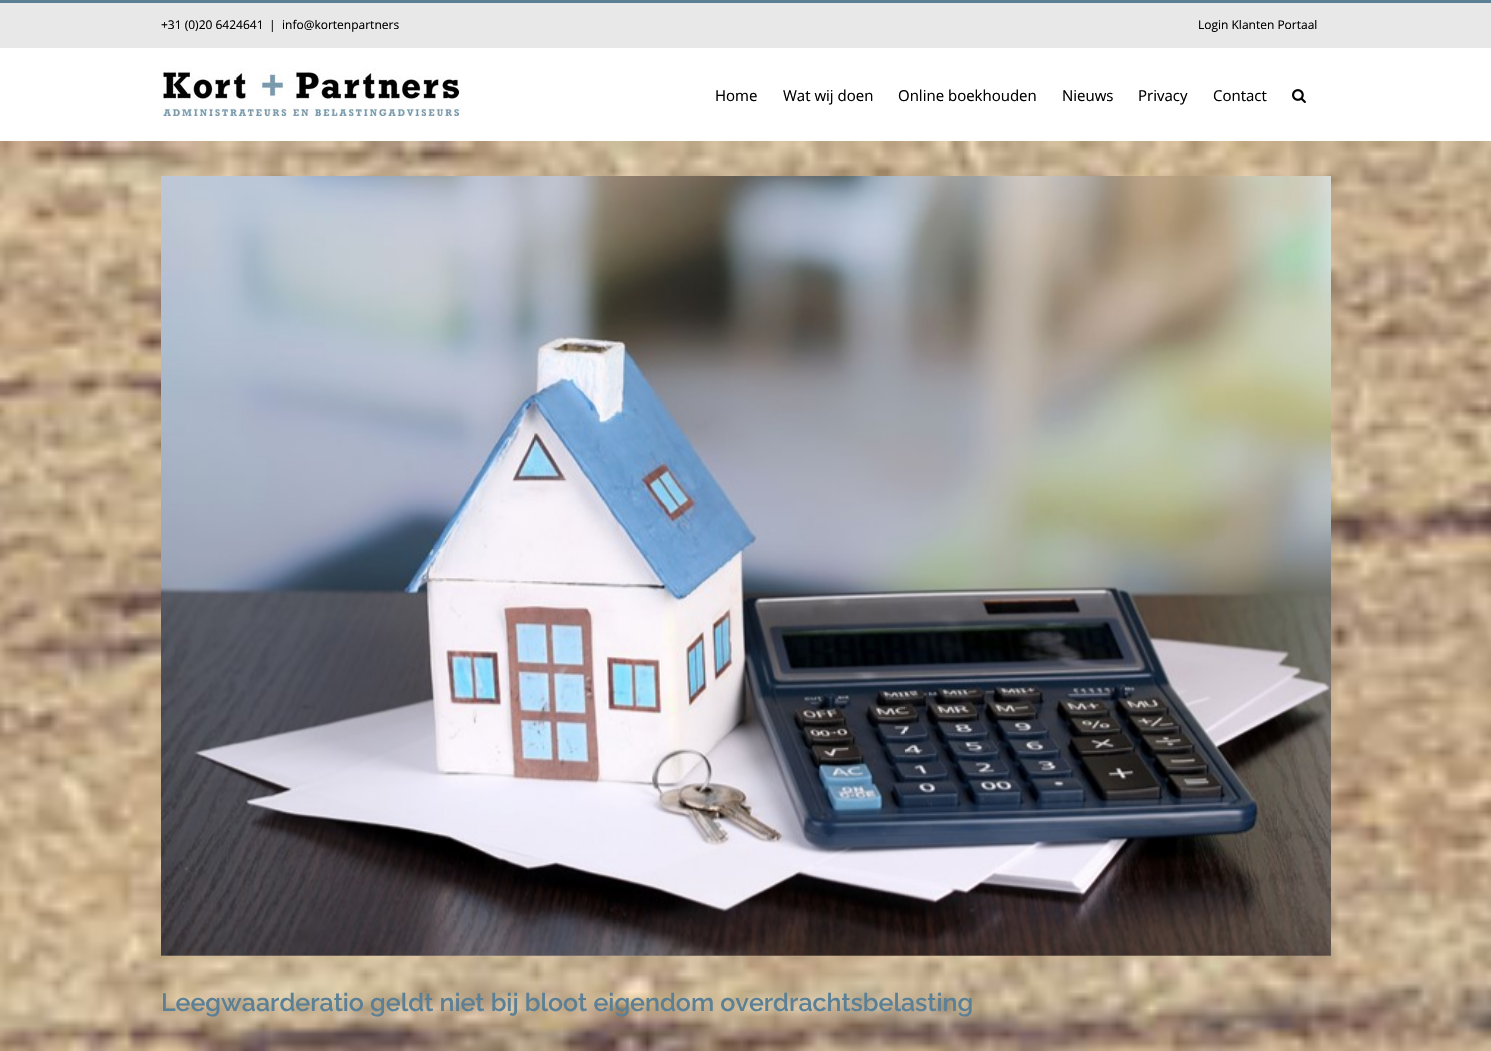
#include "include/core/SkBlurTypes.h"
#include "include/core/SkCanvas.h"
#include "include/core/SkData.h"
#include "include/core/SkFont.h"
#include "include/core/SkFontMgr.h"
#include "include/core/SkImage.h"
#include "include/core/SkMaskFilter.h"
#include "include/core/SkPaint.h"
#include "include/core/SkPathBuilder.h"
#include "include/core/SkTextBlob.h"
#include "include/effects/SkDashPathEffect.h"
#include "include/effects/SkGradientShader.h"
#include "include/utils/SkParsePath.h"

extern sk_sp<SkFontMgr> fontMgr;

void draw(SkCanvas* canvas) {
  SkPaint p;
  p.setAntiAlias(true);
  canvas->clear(SK_ColorWHITE);
  p.setColor(SkColorSetRGB(232, 232, 232));
  canvas->drawRect(SkRect::MakeLTRB(0, 3, 1491, 48), p);
  p.setColor(SkColorSetRGB(91, 127, 149));
  canvas->drawRect(SkRect::MakeLTRB(0, 0, 1491, 3), p);
  canvas->drawImageRect(SkImages::DeferredFromEncodedData(SkData::MakeFromFileName("images/1.png")), SkRect::MakeLTRB(161, 68, 461, 116), SkSamplingOptions());
  canvas->drawImageRect(SkImages::DeferredFromEncodedData(SkData::MakeFromFileName("images/2.png")), SkRect::MakeLTRB(1292, 89, 1306, 103), SkSamplingOptions());
  canvas->drawImageRect(SkImages::DeferredFromEncodedData(SkData::MakeFromFileName("images/3.png")), SkRect::MakeLTRB(0, 141, 1491, 1051), SkSamplingOptions());
  canvas->drawImageRect(SkImages::DeferredFromEncodedData(SkData::MakeFromFileName("images/4.png")), SkRect::MakeLTRB(161, 176, 1331, 956), SkSamplingOptions());
  SkFont font1(fontMgr->matchFamilyStyle("Open Sans", SkFontStyle::Normal()), 12);
  font1.setSubpixel(true);
  p.setColor(SK_ColorBLACK);
  canvas->drawString("+31 (0)20 6424641", 161, 29, font1, p);
  canvas->drawString("|", 269, 29, font1, p);
  canvas->drawString("info@kortenpartners", 282, 29, font1, p);
  canvas->drawString("Login Klanten Portaal", 1198, 29, font1, p);
  SkFont font2(fontMgr->matchFamilyStyle("Open Sans", SkFontStyle::Normal()), 15);
  font2.setSubpixel(true);
  canvas->drawString("Home", 715, 101, font2, p);
  canvas->drawString("Wat wij doen", 783, 101, font2, p);
  canvas->drawString("Online boekhouden", 898, 101, font2, p);
  canvas->drawString("Nieuws", 1062, 101, font2, p);
  canvas->drawString("Privacy", 1138, 101, font2, p);
  canvas->drawString("Contact", 1213, 101, font2, p);
  SkFont font3(fontMgr->matchFamilyStyle("Raleway", SkFontStyle(600, SkFontStyle::kNormal_Width, SkFontStyle::kUpright_Slant)), 25);
  font3.setSubpixel(true);
  p.setColor(SkColorSetRGB(91, 127, 149));
  canvas->drawString("Leegwaarderatio geldt niet bij bloot eigendom overdrachtsbelasting", 161, 1011, font3, p);
}
